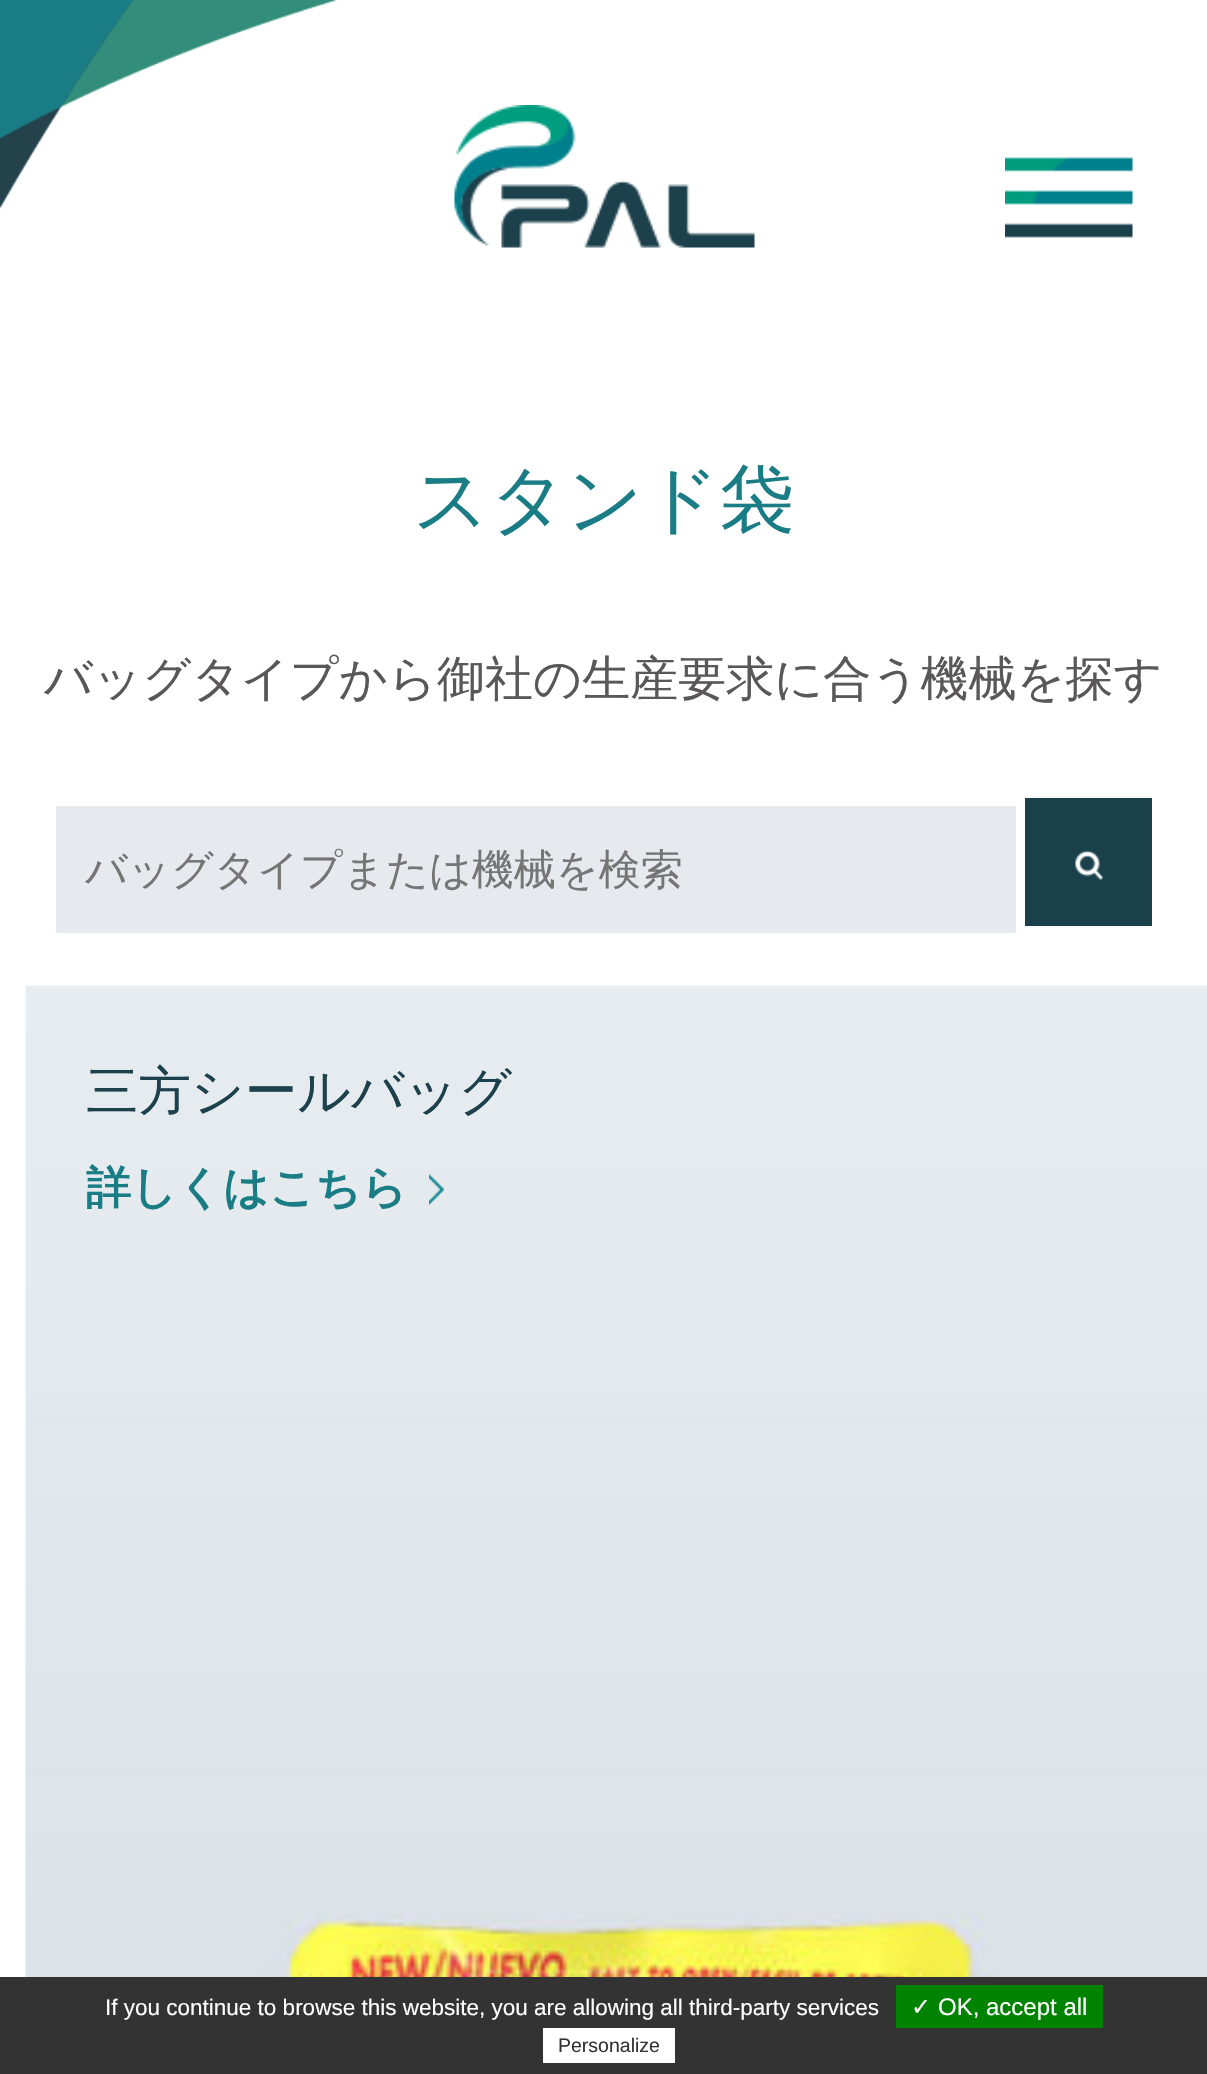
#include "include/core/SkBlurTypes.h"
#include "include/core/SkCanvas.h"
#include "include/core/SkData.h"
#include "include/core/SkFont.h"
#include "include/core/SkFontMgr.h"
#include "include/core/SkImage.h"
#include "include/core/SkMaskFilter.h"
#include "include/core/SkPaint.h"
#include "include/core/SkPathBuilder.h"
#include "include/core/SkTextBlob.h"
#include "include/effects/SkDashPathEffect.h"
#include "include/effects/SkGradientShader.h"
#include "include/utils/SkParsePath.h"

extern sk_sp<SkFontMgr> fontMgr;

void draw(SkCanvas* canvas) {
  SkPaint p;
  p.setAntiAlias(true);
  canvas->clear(SK_ColorWHITE);
  canvas->drawImageRect(SkImages::DeferredFromEncodedData(SkData::MakeFromFileName("images/1.png")), SkRect::MakeLTRB(0, 0, 337, 209), SkSamplingOptions());
  canvas->drawImageRect(SkImages::DeferredFromEncodedData(SkData::MakeFromFileName("images/2.png")), SkRect::MakeLTRB(454, 105, 755, 248), SkSamplingOptions());
  canvas->drawImageRect(SkImages::DeferredFromEncodedData(SkData::MakeFromFileName("images/3.png")), SkRect::MakeLTRB(1005, 157, 1133, 238), SkSamplingOptions());
  p.setColor(SkColorSetRGB(230, 234, 239));
  canvas->drawRect(SkRect::MakeLTRB(56, 806, 1016, 933), p);
  p.setColor(SkColorSetRGB(26, 64, 76));
  canvas->drawRect(SkRect::MakeLTRB(1025, 798, 1152, 926), p);
  canvas->drawImageRect(SkImages::DeferredFromEncodedData(SkData::MakeFromFileName("images/4.png")), SkRect::MakeLTRB(1075, 850, 1103, 881), SkSamplingOptions());
  canvas->drawImageRect(SkImages::DeferredFromEncodedData(SkData::MakeFromFileName("images/5.png")), SkRect::MakeLTRB(25, 985, 1207, 1977), SkSamplingOptions());
  canvas->drawImageRect(SkImages::DeferredFromEncodedData(SkData::MakeFromFileName("images/6.png")), SkRect::MakeLTRB(429, 1174, 444, 1205), SkSamplingOptions());
  p.setColor(SkColorSetRGB(51, 51, 51));
  canvas->drawRect(SkRect::MakeLTRB(0, 1977, 1207, 2074), p);
  p.setColor(SkColorSetRGB(0, 131, 0));
  canvas->drawRect(SkRect::MakeLTRB(896, 1985, 1103, 2028), p);
  p.setColor(SK_ColorWHITE);
  canvas->drawRect(SkRect::MakeLTRB(543, 2028, 675, 2063), p);
  SkFont font1(fontMgr->matchFamilyStyle("WenQuanYi Zen Hei", SkFontStyle(500, SkFontStyle::kNormal_Width, SkFontStyle::kUpright_Slant)), 75);
  font1.setSubpixel(true);
  p.setColor(SkColorSetRGB(26, 125, 133));
  canvas->drawString("スタンド袋", 413, 525, font1, p);
  SkFont font2(fontMgr->matchFamilyStyle("WenQuanYi Zen Hei", SkFontStyle(500, SkFontStyle::kNormal_Width, SkFontStyle::kUpright_Slant)), 48);
  font2.setSubpixel(true);
  p.setColor(SkColorSetRGB(89, 87, 87));
  canvas->drawString("バッグタイプから御社の生産要求に合う機械を探す", 44, 695, font2, p);
  SkFont font3(fontMgr->matchFamilyStyle("WenQuanYi Zen Hei", SkFontStyle(500, SkFontStyle::kNormal_Width, SkFontStyle::kUpright_Slant)), 42);
  font3.setSubpixel(true);
  p.setColor(SkColorSetRGB(117, 117, 117));
  canvas->drawString("バッグタイプまたは機械を検索", 85, 884, font3, p);
  SkFont font4(fontMgr->matchFamilyStyle("WenQuanYi Zen Hei", SkFontStyle(500, SkFontStyle::kNormal_Width, SkFontStyle::kUpright_Slant)), 52.5f);
  font4.setSubpixel(true);
  p.setColor(SkColorSetRGB(28, 65, 76));
  canvas->drawString("三方シールバッグ", 86, 1109, font4, p);
  SkFont font5(fontMgr->matchFamilyStyle("WenQuanYi Zen Hei", SkFontStyle::Bold()), 45);
  font5.setSubpixel(true);
  p.setColor(SkColorSetRGB(26, 125, 133));
  canvas->drawString("詳しくはこちら", 86, 1203, font5, p);
  SkFont font6(fontMgr->matchFamilyStyle("Liberation Sans", SkFontStyle::Normal()), 22.5f);
  font6.setSubpixel(true);
  p.setColor(SK_ColorWHITE);
  canvas->drawString("If you continue to browse this website, you are allowing all third-party services", 105, 2015, font6, p);
  SkFont font7(fontMgr->matchFamilyStyle("DejaVu Sans", SkFontStyle::Normal()), 24);
  font7.setSubpixel(true);
  canvas->drawString("✓", 911, 2015, font7, p);
  SkFont font8(fontMgr->matchFamilyStyle("Liberation Sans", SkFontStyle::Normal()), 24);
  font8.setSubpixel(true);
  canvas->drawString("OK, accept all", 938, 2015, font8, p);
  SkFont font9(fontMgr->matchFamilyStyle("Liberation Sans", SkFontStyle::Normal()), 19.5f);
  font9.setSubpixel(true);
  p.setColor(SkColorSetRGB(51, 51, 51));
  canvas->drawString("Personalize", 558, 2052, font9, p);
}
